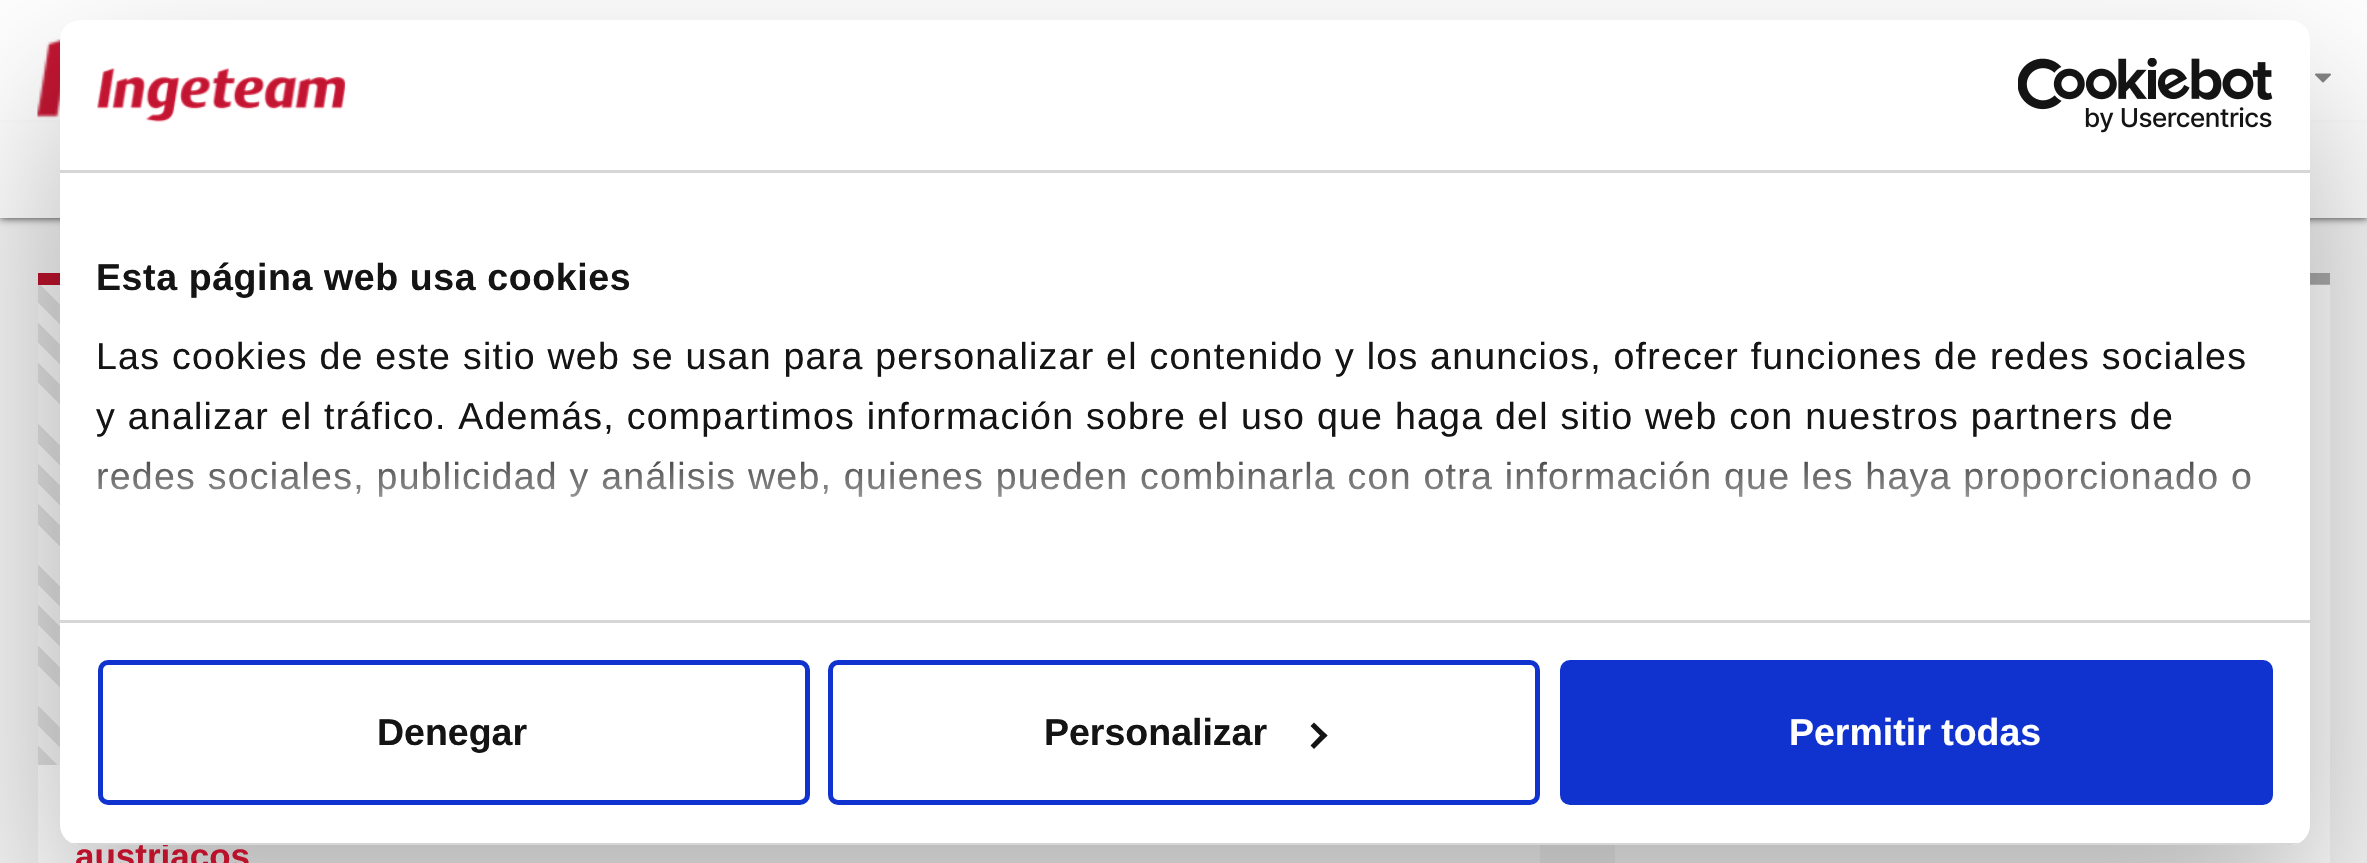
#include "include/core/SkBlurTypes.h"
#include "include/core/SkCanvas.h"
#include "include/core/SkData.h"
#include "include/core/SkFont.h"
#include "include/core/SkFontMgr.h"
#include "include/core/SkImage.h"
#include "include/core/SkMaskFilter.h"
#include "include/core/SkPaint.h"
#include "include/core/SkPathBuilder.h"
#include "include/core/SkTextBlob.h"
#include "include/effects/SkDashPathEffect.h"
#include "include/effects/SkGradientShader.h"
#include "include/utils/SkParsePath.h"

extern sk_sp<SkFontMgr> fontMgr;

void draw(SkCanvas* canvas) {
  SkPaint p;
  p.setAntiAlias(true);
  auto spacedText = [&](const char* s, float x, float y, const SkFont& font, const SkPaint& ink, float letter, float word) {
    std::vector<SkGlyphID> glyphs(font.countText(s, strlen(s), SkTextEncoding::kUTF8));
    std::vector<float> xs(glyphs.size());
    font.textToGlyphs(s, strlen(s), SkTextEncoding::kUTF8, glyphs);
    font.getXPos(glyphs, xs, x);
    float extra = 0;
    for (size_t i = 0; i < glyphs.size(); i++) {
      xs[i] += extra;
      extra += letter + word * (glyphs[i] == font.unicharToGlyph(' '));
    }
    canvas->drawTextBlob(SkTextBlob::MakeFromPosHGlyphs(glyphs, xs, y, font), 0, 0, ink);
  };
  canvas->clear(SK_ColorWHITE);
  p.setColor(SkColorSetRGB(244, 244, 244));
  canvas->drawRect(SkRect::MakeLTRB(0, 123, 2367, 863), p);
  p.setColor(SkColorSetRGB(221, 221, 221));
  canvas->drawRect(SkRect::MakeLTRB(0, 120, 2367, 123), p);
  canvas->save();
  canvas->clipPath(SkPathBuilder(SkPathFillType::kEvenOdd).moveTo(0, 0).lineTo(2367, 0).lineTo(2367, 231).lineTo(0, 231).close().moveTo(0, 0).lineTo(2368, 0).lineTo(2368, 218).lineTo(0, 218).close().detach(), true);
  p.setColor(SkColorSetRGB(52, 52, 52));
  p.setMaskFilter(SkMaskFilter::MakeBlur(kNormal_SkBlurStyle, 4));
  canvas->drawRect(SkRect::MakeLTRB(0, 0, 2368, 218), p);
  p.setMaskFilter(nullptr);
  canvas->restore();
  p.setColor(SkColorSetARGB(230, 255, 255, 255));
  canvas->drawRect(SkRect::MakeLTRB(0, 120, 2367, 218), p);
  canvas->drawImageRect(SkImages::DeferredFromEncodedData(SkData::MakeFromFileName("images/3.png")), SkRect::MakeLTRB(37, 38, 61, 119), SkSamplingOptions());
  canvas->drawImageRect(SkImages::DeferredFromEncodedData(SkData::MakeFromFileName("images/4.png")), SkRect::MakeLTRB(2315, 73, 2331, 83), SkSamplingOptions());
  p.setColor(SK_ColorWHITE);
  canvas->drawRect(SkRect::MakeLTRB(38, 765, 1540, 863), p);
  p.setColor(SkColorSetRGB(186, 18, 43));
  canvas->drawRect(SkRect::MakeLTRB(38, 273, 60, 285), p);
  {
    const SkColor colors[] = {SkColorSetRGB(224, 224, 224), SkColorSetRGB(224, 224, 224), SkColorSetRGB(248, 248, 248), SkColorSetRGB(248, 248, 248), SkColorSetRGB(224, 224, 224), SkColorSetRGB(224, 224, 224), SkColorSetRGB(248, 248, 248), SkColorSetRGB(248, 248, 248), SkColorSetRGB(224, 224, 224), SkColorSetRGB(224, 224, 224), SkColorSetRGB(248, 248, 248), SkColorSetRGB(248, 248, 248), SkColorSetRGB(224, 224, 224), SkColorSetRGB(224, 224, 224), SkColorSetRGB(248, 248, 248), SkColorSetRGB(248, 248, 248), SkColorSetRGB(224, 224, 224), SkColorSetRGB(224, 224, 224), SkColorSetRGB(248, 248, 248), SkColorSetRGB(248, 248, 248), SkColorSetRGB(224, 224, 224), SkColorSetRGB(224, 224, 224), SkColorSetRGB(248, 248, 248), SkColorSetRGB(248, 248, 248), SkColorSetRGB(224, 224, 224), SkColorSetRGB(224, 224, 224), SkColorSetRGB(248, 248, 248), SkColorSetRGB(248, 248, 248), SkColorSetRGB(224, 224, 224), SkColorSetRGB(224, 224, 224), SkColorSetRGB(248, 248, 248), SkColorSetRGB(248, 248, 248), SkColorSetRGB(224, 224, 224), SkColorSetRGB(224, 224, 224), SkColorSetRGB(248, 248, 248), SkColorSetRGB(248, 248, 248), SkColorSetRGB(224, 224, 224), SkColorSetRGB(224, 224, 224), SkColorSetRGB(248, 248, 248), SkColorSetRGB(248, 248, 248), SkColorSetRGB(224, 224, 224), SkColorSetRGB(224, 224, 224), SkColorSetRGB(248, 248, 248), SkColorSetRGB(248, 248, 248), SkColorSetRGB(224, 224, 224), SkColorSetRGB(224, 224, 224), SkColorSetRGB(248, 248, 248), SkColorSetRGB(248, 248, 248), SkColorSetRGB(224, 224, 224), SkColorSetRGB(224, 224, 224), SkColorSetRGB(248, 248, 248), SkColorSetRGB(248, 248, 248), SkColorSetRGB(224, 224, 224), SkColorSetRGB(224, 224, 224), SkColorSetRGB(248, 248, 248), SkColorSetRGB(248, 248, 248), SkColorSetRGB(224, 224, 224), SkColorSetRGB(224, 224, 224), SkColorSetRGB(248, 248, 248), SkColorSetRGB(248, 248, 248), SkColorSetRGB(224, 224, 224), SkColorSetRGB(224, 224, 224), SkColorSetRGB(248, 248, 248), SkColorSetRGB(248, 248, 248), SkColorSetRGB(224, 224, 224), SkColorSetRGB(224, 224, 224), SkColorSetRGB(248, 248, 248), SkColorSetRGB(248, 248, 248), SkColorSetRGB(224, 224, 224), SkColorSetRGB(224, 224, 224), SkColorSetRGB(248, 248, 248), SkColorSetRGB(248, 248, 248), SkColorSetRGB(224, 224, 224), SkColorSetRGB(224, 224, 224), SkColorSetRGB(248, 248, 248), SkColorSetRGB(248, 248, 248), SkColorSetRGB(224, 224, 224), SkColorSetRGB(224, 224, 224), SkColorSetRGB(248, 248, 248), SkColorSetRGB(248, 248, 248), SkColorSetRGB(224, 224, 224), SkColorSetRGB(224, 224, 224), SkColorSetRGB(248, 248, 248), SkColorSetRGB(248, 248, 248), SkColorSetRGB(224, 224, 224), SkColorSetRGB(224, 224, 224), SkColorSetRGB(248, 248, 248), SkColorSetRGB(248, 248, 248), SkColorSetRGB(224, 224, 224), SkColorSetRGB(224, 224, 224), SkColorSetRGB(248, 248, 248), SkColorSetRGB(248, 248, 248), SkColorSetRGB(224, 224, 224), SkColorSetRGB(224, 224, 224), SkColorSetRGB(248, 248, 248), SkColorSetRGB(248, 248, 248), SkColorSetRGB(224, 224, 224), SkColorSetRGB(224, 224, 224), SkColorSetRGB(248, 248, 248), SkColorSetRGB(248, 248, 248), SkColorSetRGB(224, 224, 224), SkColorSetRGB(224, 224, 224), SkColorSetRGB(248, 248, 248), SkColorSetRGB(248, 248, 248), SkColorSetRGB(224, 224, 224), SkColorSetRGB(224, 224, 224), SkColorSetRGB(248, 248, 248), SkColorSetRGB(248, 248, 248), SkColorSetRGB(224, 224, 224), SkColorSetRGB(224, 224, 224), SkColorSetRGB(248, 248, 248), SkColorSetRGB(248, 248, 248), SkColorSetRGB(224, 224, 224), SkColorSetRGB(224, 224, 224), SkColorSetRGB(248, 248, 248), SkColorSetRGB(248, 248, 248), SkColorSetRGB(224, 224, 224), SkColorSetRGB(224, 224, 224), SkColorSetRGB(248, 248, 248), SkColorSetRGB(248, 248, 248), SkColorSetRGB(224, 224, 224), SkColorSetRGB(224, 224, 224), SkColorSetRGB(248, 248, 248), SkColorSetRGB(248, 248, 248), SkColorSetRGB(224, 224, 224), SkColorSetRGB(224, 224, 224), SkColorSetRGB(248, 248, 248), SkColorSetRGB(248, 248, 248), SkColorSetRGB(224, 224, 224), SkColorSetRGB(224, 224, 224), SkColorSetRGB(248, 248, 248), SkColorSetRGB(248, 248, 248), SkColorSetRGB(224, 224, 224), SkColorSetRGB(224, 224, 224), SkColorSetRGB(248, 248, 248), SkColorSetRGB(248, 248, 248), SkColorSetRGB(224, 224, 224), SkColorSetRGB(224, 224, 224), SkColorSetRGB(248, 248, 248), SkColorSetRGB(248, 248, 248), SkColorSetRGB(224, 224, 224), SkColorSetRGB(224, 224, 224), SkColorSetRGB(248, 248, 248), SkColorSetRGB(248, 248, 248), SkColorSetRGB(224, 224, 224), SkColorSetRGB(224, 224, 224), SkColorSetRGB(248, 248, 248), SkColorSetRGB(248, 248, 248), SkColorSetRGB(224, 224, 224), SkColorSetRGB(224, 224, 224), SkColorSetRGB(248, 248, 248), SkColorSetRGB(248, 248, 248), SkColorSetRGB(224, 224, 224), SkColorSetRGB(224, 224, 224), SkColorSetRGB(248, 248, 248), SkColorSetRGB(248, 248, 248), SkColorSetRGB(224, 224, 224), SkColorSetRGB(224, 224, 224), SkColorSetRGB(248, 248, 248), SkColorSetRGB(248, 248, 248), SkColorSetRGB(224, 224, 224), SkColorSetRGB(224, 224, 224), SkColorSetRGB(248, 248, 248), SkColorSetRGB(248, 248, 248), SkColorSetRGB(224, 224, 224), SkColorSetRGB(224, 224, 224), SkColorSetRGB(248, 248, 248), SkColorSetRGB(248, 248, 248), SkColorSetRGB(224, 224, 224), SkColorSetRGB(224, 224, 224), SkColorSetRGB(248, 248, 248), SkColorSetRGB(248, 248, 248), SkColorSetRGB(224, 224, 224), SkColorSetRGB(224, 224, 224), SkColorSetRGB(248, 248, 248), SkColorSetRGB(248, 248, 248), SkColorSetRGB(224, 224, 224), SkColorSetRGB(224, 224, 224), SkColorSetRGB(248, 248, 248), SkColorSetRGB(248, 248, 248), SkColorSetRGB(224, 224, 224), SkColorSetRGB(224, 224, 224), SkColorSetRGB(248, 248, 248), SkColorSetRGB(248, 248, 248), SkColorSetRGB(224, 224, 224), SkColorSetRGB(224, 224, 224), SkColorSetRGB(248, 248, 248), SkColorSetRGB(248, 248, 248), SkColorSetRGB(224, 224, 224), SkColorSetRGB(224, 224, 224), SkColorSetRGB(248, 248, 248), SkColorSetRGB(248, 248, 248), SkColorSetRGB(224, 224, 224), SkColorSetRGB(224, 224, 224), SkColorSetRGB(248, 248, 248), SkColorSetRGB(248, 248, 248), SkColorSetRGB(224, 224, 224), SkColorSetRGB(224, 224, 224), SkColorSetRGB(248, 248, 248), SkColorSetRGB(248, 248, 248), SkColorSetRGB(224, 224, 224), SkColorSetRGB(224, 224, 224), SkColorSetRGB(248, 248, 248), SkColorSetRGB(248, 248, 248), SkColorSetRGB(224, 224, 224), SkColorSetRGB(224, 224, 224), SkColorSetRGB(248, 248, 248), SkColorSetRGB(248, 248, 248), SkColorSetRGB(224, 224, 224), SkColorSetRGB(224, 224, 224), SkColorSetRGB(248, 248, 248), SkColorSetRGB(248, 248, 248), SkColorSetRGB(224, 224, 224), SkColorSetRGB(224, 224, 224), SkColorSetRGB(248, 248, 248), SkColorSetRGB(248, 248, 248), SkColorSetRGB(224, 224, 224), SkColorSetRGB(224, 224, 224), SkColorSetRGB(248, 248, 248), SkColorSetRGB(248, 248, 248), SkColorSetRGB(224, 224, 224), SkColorSetRGB(224, 224, 224), SkColorSetRGB(248, 248, 248), SkColorSetRGB(248, 248, 248), SkColorSetRGB(224, 224, 224), SkColorSetRGB(224, 224, 224), SkColorSetRGB(248, 248, 248), SkColorSetRGB(248, 248, 248)};
    const float stops[] = {0, 0.01f, 0.01f, 0.02f, 0.02f, 0.03f, 0.03f, 0.04f, 0.04f, 0.04f, 0.04f, 0.05f, 0.05f, 0.06f, 0.06f, 0.07f, 0.07f, 0.08f, 0.08f, 0.09f, 0.09f, 0.1f, 0.1f, 0.11f, 0.11f, 0.11f, 0.11f, 0.12f, 0.12f, 0.13f, 0.13f, 0.14f, 0.14f, 0.15f, 0.15f, 0.16f, 0.16f, 0.17f, 0.17f, 0.18f, 0.18f, 0.18f, 0.18f, 0.19f, 0.19f, 0.2f, 0.2f, 0.21f, 0.21f, 0.22f, 0.22f, 0.23f, 0.23f, 0.24f, 0.24f, 0.25f, 0.25f, 0.25f, 0.25f, 0.26f, 0.26f, 0.27f, 0.27f, 0.28f, 0.28f, 0.29f, 0.29f, 0.3f, 0.3f, 0.31f, 0.31f, 0.32f, 0.32f, 0.32f, 0.32f, 0.33f, 0.33f, 0.34f, 0.34f, 0.35f, 0.35f, 0.36f, 0.36f, 0.37f, 0.37f, 0.38f, 0.38f, 0.39f, 0.39f, 0.39f, 0.39f, 0.4f, 0.4f, 0.41f, 0.41f, 0.42f, 0.42f, 0.43f, 0.43f, 0.44f, 0.44f, 0.45f, 0.45f, 0.46f, 0.46f, 0.46f, 0.46f, 0.47f, 0.47f, 0.48f, 0.48f, 0.49f, 0.49f, 0.5f, 0.5f, 0.51f, 0.51f, 0.52f, 0.52f, 0.53f, 0.53f, 0.54f, 0.54f, 0.54f, 0.54f, 0.55f, 0.55f, 0.56f, 0.56f, 0.57f, 0.57f, 0.58f, 0.58f, 0.59f, 0.59f, 0.6f, 0.6f, 0.61f, 0.61f, 0.61f, 0.61f, 0.62f, 0.62f, 0.63f, 0.63f, 0.64f, 0.64f, 0.65f, 0.65f, 0.66f, 0.66f, 0.67f, 0.67f, 0.68f, 0.68f, 0.68f, 0.68f, 0.69f, 0.69f, 0.7f, 0.7f, 0.71f, 0.71f, 0.72f, 0.72f, 0.73f, 0.73f, 0.74f, 0.74f, 0.75f, 0.75f, 0.75f, 0.75f, 0.76f, 0.76f, 0.77f, 0.77f, 0.78f, 0.78f, 0.79f, 0.79f, 0.8f, 0.8f, 0.81f, 0.81f, 0.82f, 0.82f, 0.82f, 0.82f, 0.83f, 0.83f, 0.84f, 0.84f, 0.85f, 0.85f, 0.86f, 0.86f, 0.87f, 0.87f, 0.88f, 0.88f, 0.89f, 0.89f, 0.89f, 0.89f, 0.9f, 0.9f, 0.91f, 0.91f, 0.92f, 0.92f, 0.93f, 0.93f, 0.94f, 0.94f, 0.95f, 0.95f, 0.96f, 0.96f, 0.96f, 0.96f, 0.97f, 0.97f, 0.98f, 0.98f, 0.99f, 0.99f, 1};
    const SkPoint ends[] = {{293, 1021}, {1301, 13}};
    p.setShader(SkGradientShader::MakeLinear(ends, colors, stops, 228, SkTileMode::kClamp));
    p.setAlpha(255);
  }
  canvas->drawRect(SkRect::MakeLTRB(38, 285, 60, 765), p);
  p.setShader(nullptr);
  p.setColor(SK_ColorWHITE);
  canvas->drawRect(SkRect::MakeLTRB(1615, 486, 2330, 863), p);
  p.setColor(SkColorSetRGB(170, 170, 170));
  canvas->drawRect(SkRect::MakeLTRB(2310, 273, 2330, 285), p);
  canvas->drawImageRect(SkImages::DeferredFromEncodedData(SkData::MakeFromFileName("images/5.png")), SkRect::MakeLTRB(2310, 284, 2330, 486), SkSamplingOptions());
  p.setColor(SkColorSetARGB(77, 0, 0, 0));
  p.setMaskFilter(SkMaskFilter::MakeBlur(kNormal_SkBlurStyle, 85));
  canvas->drawRoundRect(SkRect::MakeLTRB(60, 100, 2310, 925), 20, 20, p);
  p.setMaskFilter(nullptr);
  SkFont font1(fontMgr->matchFamilyStyle("Liberation Sans", SkFontStyle::Bold()), 35);
  font1.setSubpixel(true);
  p.setColor(SkColorSetRGB(186, 18, 43));
  canvas->drawString("austriacos", 75, 868, font1, p);
  p.setColor(SK_ColorWHITE);
  canvas->drawRoundRect(SkRect::MakeLTRB(60, 20, 2310, 845), 20, 20, p);
  SkFont font2(fontMgr->matchFamilyStyle("Liberation Sans", SkFontStyle::Normal()), 37.5f);
  font2.setSubpixel(true);
  p.setColor(SkColorSetRGB(20, 20, 20));
  spacedText("redes sociales, publicidad y análisis web, quienes pueden combinarla con otra información que les haya proporcionado o", 96, 489, font2, p, 1.25f, 0);
  spacedText("y analizar el tráfico. Además, compartimos información sobre el uso que haga del sitio web con nuestros partners de", 96, 429, font2, p, 1.25f, 0);
  {
    const SkColor colors[] = {SK_ColorWHITE, SkColorSetARGB(204, 255, 255, 255), SkColorSetARGB(0, 255, 255, 255)};
    const float stops[] = {0, 0.5f, 1};
    const SkPoint ends[] = {{1169, 620}, {1169, 433}};
    p.setShader(SkGradientShader::MakeLinear(ends, colors, stops, 3, SkTileMode::kClamp));
    p.setAlpha(255);
  }
  canvas->drawRect(SkRect::MakeLTRB(98, 436, 2251, 497), p);
  p.setStyle(SkPaint::kStroke_Style);
  p.setStrokeWidth(5);
  p.setShader(nullptr);
  p.setColor(SkColorSetRGB(16, 50, 207));
  canvas->drawRoundRect(SkRect::MakeLTRB(830.5f, 662.5f, 1537.5f, 802.5f), 7.5f, 7.5f, p);
  p.setStyle(SkPaint::kFill_Style);
  p.setColor(SkColorSetRGB(20, 20, 20));
  canvas->drawPath(SkPathBuilder().moveTo(1314, 722.5f).lineTo(1327.5f, 735.5f).lineTo(1323.5f, 739).lineTo(1310.5f, 726).close().detach(), p);
  canvas->drawPath(SkPathBuilder().moveTo(1323.5f, 732).lineTo(1327.5f, 735.5f).lineTo(1314, 749).lineTo(1310.5f, 745.5f).close().detach(), p);
  p.setColor(SkColorSetRGB(16, 50, 207));
  canvas->drawRoundRect(SkRect::MakeLTRB(1562.5f, 662.5f, 2270.5f, 802.5f), 7.5f, 7.5f, p);
  p.setStyle(SkPaint::kStroke_Style);
  canvas->drawRoundRect(SkRect::MakeLTRB(1562.5f, 662.5f, 2270.5f, 802.5f), 7.5f, 7.5f, p);
  SkFont font3(fontMgr->matchFamilyStyle("Liberation Sans", SkFontStyle::Bold()), 37.5f);
  font3.setSubpixel(true);
  p.setStyle(SkPaint::kFill_Style);
  p.setColor(SK_ColorWHITE);
  canvas->drawString("Permitir todas", 1789, 745, font3, p);
  p.setColor(SkColorSetRGB(20, 20, 20));
  canvas->drawString("Personalizar", 1044, 745, font3, p);
  p.setStyle(SkPaint::kStroke_Style);
  p.setColor(SkColorSetRGB(16, 50, 207));
  canvas->drawRoundRect(SkRect::MakeLTRB(100.5f, 662.5f, 807.5f, 802.5f), 7.5f, 7.5f, p);
  p.setStyle(SkPaint::kFill_Style);
  p.setColor(SkColorSetRGB(20, 20, 20));
  canvas->drawString("Denegar", 377, 745, font3, p);
  canvas->save();
  canvas->clipPath(SkPathBuilder().moveTo(80, 20).lineTo(2290, 20).cubicTo(2301, 20, 2310, 29, 2310, 40).lineTo(2310, 825).cubicTo(2310, 836, 2301, 845, 2290, 845).lineTo(80, 845).cubicTo(69, 845, 60, 836, 60, 825).lineTo(60, 40).cubicTo(60, 29, 69, 20, 80, 20).close().detach(), true);
  p.setColor(SkColorSetRGB(214, 214, 214));
  canvas->drawRect(SkRect::MakeLTRB(71, 843, 2299, 845), p);
  canvas->restore();
  p.setColor(SkColorSetRGB(20, 20, 20));
  spacedText("Las cookies de este sitio web se usan para personalizar el contenido y los anuncios, ofrecer funciones de redes sociales", 96, 369, font2, p, 1.25f, 0);
  spacedText("Esta página web usa cookies", 96, 290, font3, p, 0.6f, 0);
  p.setColor(SkColorSetRGB(214, 214, 214));
  canvas->drawRect(SkRect::MakeLTRB(60, 620, 2310, 623), p);
  canvas->drawImageRect(SkImages::DeferredFromEncodedData(SkData::MakeFromFileName("images/2.png")), SkRect::MakeLTRB(2018, 58, 2273, 133), SkSamplingOptions());
  canvas->drawImageRect(SkImages::DeferredFromEncodedData(SkData::MakeFromFileName("images/1.png")), SkRect::MakeLTRB(97, 68, 346, 123), SkSamplingOptions());
  canvas->drawRect(SkRect::MakeLTRB(60, 170, 2310, 173), p);
}
